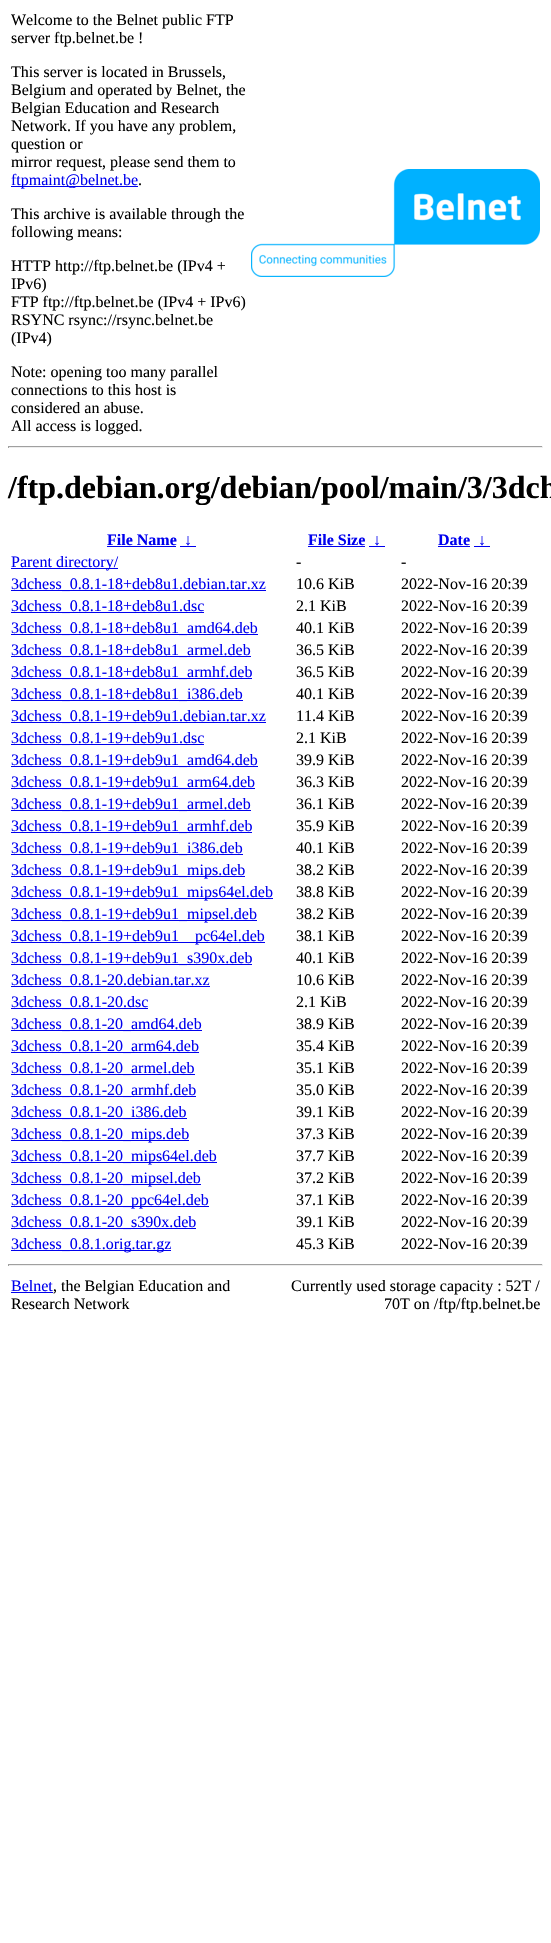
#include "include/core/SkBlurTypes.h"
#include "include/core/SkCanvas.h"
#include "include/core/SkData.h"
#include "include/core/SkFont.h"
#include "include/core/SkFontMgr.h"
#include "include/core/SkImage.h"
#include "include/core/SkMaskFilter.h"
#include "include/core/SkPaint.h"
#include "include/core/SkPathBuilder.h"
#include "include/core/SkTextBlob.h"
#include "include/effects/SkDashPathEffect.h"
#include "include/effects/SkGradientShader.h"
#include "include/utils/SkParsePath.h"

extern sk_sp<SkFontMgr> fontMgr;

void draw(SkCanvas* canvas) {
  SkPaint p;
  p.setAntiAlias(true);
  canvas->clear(SK_ColorWHITE);
  p.setColor(SkColorSetRGB(0, 0, 238));
  canvas->drawRect(SkRect::MakeLTRB(11, 186, 138, 187), p);
  canvas->drawImageRect(SkImages::DeferredFromEncodedData(SkData::MakeFromFileName("images/1.png")), SkRect::MakeLTRB(251, 169, 540, 277), SkSamplingOptions());
  p.setColor(SkColorSetRGB(159, 159, 159));
  canvas->drawRect(SkRect::MakeLTRB(8, 446, 543, 447), p);
  p.setColor(SkColorSetRGB(238, 238, 238));
  canvas->drawRect(SkRect::MakeLTRB(542, 446, 543, 448), p);
  canvas->drawRect(SkRect::MakeLTRB(8, 447, 543, 448), p);
  p.setColor(SkColorSetRGB(159, 159, 159));
  canvas->drawRect(SkRect::MakeLTRB(8, 446, 9, 448), p);
  p.setColor(SkColorSetRGB(0, 0, 238));
  canvas->drawRect(SkRect::MakeLTRB(107, 546, 176, 547), p);
  canvas->drawRect(SkRect::MakeLTRB(180, 546, 196, 547), p);
  canvas->drawRect(SkRect::MakeLTRB(308, 546, 365, 547), p);
  canvas->drawRect(SkRect::MakeLTRB(369, 546, 385, 547), p);
  canvas->drawRect(SkRect::MakeLTRB(438, 546, 470, 547), p);
  canvas->drawRect(SkRect::MakeLTRB(474, 546, 490, 547), p);
  canvas->drawRect(SkRect::MakeLTRB(11, 568, 118, 569), p);
  canvas->drawRect(SkRect::MakeLTRB(11, 590, 266, 591), p);
  canvas->drawRect(SkRect::MakeLTRB(11, 612, 204, 613), p);
  canvas->drawRect(SkRect::MakeLTRB(11, 634, 258, 635), p);
  canvas->drawRect(SkRect::MakeLTRB(11, 656, 251, 657), p);
  canvas->drawRect(SkRect::MakeLTRB(11, 678, 252, 679), p);
  canvas->drawRect(SkRect::MakeLTRB(11, 700, 243, 701), p);
  canvas->drawRect(SkRect::MakeLTRB(11, 722, 266, 723), p);
  canvas->drawRect(SkRect::MakeLTRB(11, 744, 204, 745), p);
  canvas->drawRect(SkRect::MakeLTRB(11, 766, 258, 767), p);
  canvas->drawRect(SkRect::MakeLTRB(11, 788, 255, 789), p);
  canvas->drawRect(SkRect::MakeLTRB(11, 810, 251, 811), p);
  canvas->drawRect(SkRect::MakeLTRB(11, 832, 252, 833), p);
  canvas->drawRect(SkRect::MakeLTRB(11, 854, 243, 855), p);
  canvas->drawRect(SkRect::MakeLTRB(11, 876, 245, 877), p);
  canvas->drawRect(SkRect::MakeLTRB(11, 898, 273, 899), p);
  canvas->drawRect(SkRect::MakeLTRB(11, 920, 257, 921), p);
  canvas->drawRect(SkRect::MakeLTRB(11, 942, 265, 943), p);
  canvas->drawRect(SkRect::MakeLTRB(11, 964, 252, 965), p);
  canvas->drawRect(SkRect::MakeLTRB(11, 986, 210, 987), p);
  canvas->drawRect(SkRect::MakeLTRB(11, 1008, 148, 1009), p);
  canvas->drawRect(SkRect::MakeLTRB(11, 1030, 202, 1031), p);
  canvas->drawRect(SkRect::MakeLTRB(11, 1052, 199, 1053), p);
  canvas->drawRect(SkRect::MakeLTRB(11, 1074, 195, 1075), p);
  canvas->drawRect(SkRect::MakeLTRB(11, 1096, 196, 1097), p);
  canvas->drawRect(SkRect::MakeLTRB(11, 1118, 187, 1119), p);
  canvas->drawRect(SkRect::MakeLTRB(11, 1140, 189, 1141), p);
  canvas->drawRect(SkRect::MakeLTRB(11, 1162, 217, 1163), p);
  canvas->drawRect(SkRect::MakeLTRB(11, 1184, 201, 1185), p);
  canvas->drawRect(SkRect::MakeLTRB(11, 1206, 209, 1207), p);
  canvas->drawRect(SkRect::MakeLTRB(11, 1228, 196, 1229), p);
  canvas->drawRect(SkRect::MakeLTRB(11, 1250, 171, 1251), p);
  p.setColor(SkColorSetRGB(159, 159, 159));
  canvas->drawRect(SkRect::MakeLTRB(8, 1264, 543, 1265), p);
  p.setColor(SkColorSetRGB(238, 238, 238));
  canvas->drawRect(SkRect::MakeLTRB(542, 1264, 543, 1266), p);
  canvas->drawRect(SkRect::MakeLTRB(8, 1265, 543, 1266), p);
  p.setColor(SkColorSetRGB(159, 159, 159));
  canvas->drawRect(SkRect::MakeLTRB(8, 1264, 9, 1266), p);
  p.setColor(SkColorSetRGB(0, 0, 238));
  canvas->drawRect(SkRect::MakeLTRB(11, 1292, 53, 1293), p);
  SkFont font1(fontMgr->matchFamilyStyle("Liberation Serif", SkFontStyle::Normal()), 16);
  font1.setSubpixel(true);
  p.setColor(SK_ColorBLACK);
  canvas->drawString("Welcome to the Belnet public FTP", 11, 25, font1, p);
  canvas->drawString("server ftp.belnet.be !", 11, 43, font1, p);
  canvas->drawString("This server is located in Brussels,", 11, 77, font1, p);
  canvas->drawString("Belgium and operated by Belnet, the", 11, 95, font1, p);
  canvas->drawString("Belgian Education and Research", 11, 113, font1, p);
  canvas->drawString("Network. If you have any problem,", 11, 131, font1, p);
  canvas->drawString("question or", 11, 149, font1, p);
  canvas->drawString("mirror request, please send them to", 11, 167, font1, p);
  p.setColor(SkColorSetRGB(0, 0, 238));
  canvas->drawString("ftpmaint@belnet.be", 11, 185, font1, p);
  p.setColor(SK_ColorBLACK);
  canvas->drawString(".", 138, 185, font1, p);
  canvas->drawString("This archive is available through the", 11, 219, font1, p);
  canvas->drawString("following means:", 11, 237, font1, p);
  canvas->drawString("HTTP http://ftp.belnet.be (IPv4 +", 11, 271, font1, p);
  canvas->drawString("IPv6)", 11, 289, font1, p);
  canvas->drawString("FTP ftp://ftp.belnet.be (IPv4 + IPv6)", 11, 307, font1, p);
  canvas->drawString("RSYNC rsync://rsync.belnet.be", 11, 325, font1, p);
  canvas->drawString("(IPv4)", 11, 343, font1, p);
  canvas->drawString("Note: opening too many parallel", 11, 377, font1, p);
  canvas->drawString("connections to this host is", 11, 395, font1, p);
  canvas->drawString("considered an abuse.", 11, 413, font1, p);
  canvas->drawString("All access is logged.", 11, 431, font1, p);
  SkFont font2(fontMgr->matchFamilyStyle("Liberation Serif", SkFontStyle::Bold()), 32);
  font2.setSubpixel(true);
  canvas->drawString("/ftp.debian.org/debian/pool/main/3/3dch", 8, 498, font2, p);
  SkFont font3(fontMgr->matchFamilyStyle("Liberation Serif", SkFontStyle::Bold()), 16);
  font3.setSubpixel(true);
  p.setColor(SkColorSetRGB(0, 0, 238));
  canvas->drawString("File Name", 107, 545, font3, p);
  canvas->drawString("↓", 184, 545, font3, p);
  canvas->drawString("File Size", 308, 545, font3, p);
  canvas->drawString("↓", 373, 545, font3, p);
  canvas->drawString("Date", 438, 545, font3, p);
  canvas->drawString("↓", 478, 545, font3, p);
  canvas->drawString("Parent directory/", 11, 567, font1, p);
  p.setColor(SK_ColorBLACK);
  canvas->drawString("-", 296, 567, font1, p);
  canvas->drawString("-", 401, 567, font1, p);
  p.setColor(SkColorSetRGB(0, 0, 238));
  canvas->drawString("3dchess_0.8.1-18+deb8u1.debian.tar.xz", 11, 589, font1, p);
  p.setColor(SK_ColorBLACK);
  canvas->drawString("10.6 KiB", 296, 589, font1, p);
  canvas->drawString("2022-Nov-16 20:39", 401, 589, font1, p);
  p.setColor(SkColorSetRGB(0, 0, 238));
  canvas->drawString("3dchess_0.8.1-18+deb8u1.dsc", 11, 611, font1, p);
  p.setColor(SK_ColorBLACK);
  canvas->drawString("2.1 KiB", 296, 611, font1, p);
  canvas->drawString("2022-Nov-16 20:39", 401, 611, font1, p);
  p.setColor(SkColorSetRGB(0, 0, 238));
  canvas->drawString("3dchess_0.8.1-18+deb8u1_amd64.deb", 11, 633, font1, p);
  p.setColor(SK_ColorBLACK);
  canvas->drawString("40.1 KiB", 296, 633, font1, p);
  canvas->drawString("2022-Nov-16 20:39", 401, 633, font1, p);
  p.setColor(SkColorSetRGB(0, 0, 238));
  canvas->drawString("3dchess_0.8.1-18+deb8u1_armel.deb", 11, 655, font1, p);
  p.setColor(SK_ColorBLACK);
  canvas->drawString("36.5 KiB", 296, 655, font1, p);
  canvas->drawString("2022-Nov-16 20:39", 401, 655, font1, p);
  p.setColor(SkColorSetRGB(0, 0, 238));
  canvas->drawString("3dchess_0.8.1-18+deb8u1_armhf.deb", 11, 677, font1, p);
  p.setColor(SK_ColorBLACK);
  canvas->drawString("36.5 KiB", 296, 677, font1, p);
  canvas->drawString("2022-Nov-16 20:39", 401, 677, font1, p);
  p.setColor(SkColorSetRGB(0, 0, 238));
  canvas->drawString("3dchess_0.8.1-18+deb8u1_i386.deb", 11, 699, font1, p);
  p.setColor(SK_ColorBLACK);
  canvas->drawString("40.1 KiB", 296, 699, font1, p);
  canvas->drawString("2022-Nov-16 20:39", 401, 699, font1, p);
  p.setColor(SkColorSetRGB(0, 0, 238));
  canvas->drawString("3dchess_0.8.1-19+deb9u1.debian.tar.xz", 11, 721, font1, p);
  p.setColor(SK_ColorBLACK);
  canvas->drawString("11.4 KiB", 296, 721, font1, p);
  canvas->drawString("2022-Nov-16 20:39", 401, 721, font1, p);
  p.setColor(SkColorSetRGB(0, 0, 238));
  canvas->drawString("3dchess_0.8.1-19+deb9u1.dsc", 11, 743, font1, p);
  p.setColor(SK_ColorBLACK);
  canvas->drawString("2.1 KiB", 296, 743, font1, p);
  canvas->drawString("2022-Nov-16 20:39", 401, 743, font1, p);
  p.setColor(SkColorSetRGB(0, 0, 238));
  canvas->drawString("3dchess_0.8.1-19+deb9u1_amd64.deb", 11, 765, font1, p);
  p.setColor(SK_ColorBLACK);
  canvas->drawString("39.9 KiB", 296, 765, font1, p);
  canvas->drawString("2022-Nov-16 20:39", 401, 765, font1, p);
  p.setColor(SkColorSetRGB(0, 0, 238));
  canvas->drawString("3dchess_0.8.1-19+deb9u1_arm64.deb", 11, 787, font1, p);
  p.setColor(SK_ColorBLACK);
  canvas->drawString("36.3 KiB", 296, 787, font1, p);
  canvas->drawString("2022-Nov-16 20:39", 401, 787, font1, p);
  p.setColor(SkColorSetRGB(0, 0, 238));
  canvas->drawString("3dchess_0.8.1-19+deb9u1_armel.deb", 11, 809, font1, p);
  p.setColor(SK_ColorBLACK);
  canvas->drawString("36.1 KiB", 296, 809, font1, p);
  canvas->drawString("2022-Nov-16 20:39", 401, 809, font1, p);
  p.setColor(SkColorSetRGB(0, 0, 238));
  canvas->drawString("3dchess_0.8.1-19+deb9u1_armhf.deb", 11, 831, font1, p);
  p.setColor(SK_ColorBLACK);
  canvas->drawString("35.9 KiB", 296, 831, font1, p);
  canvas->drawString("2022-Nov-16 20:39", 401, 831, font1, p);
  p.setColor(SkColorSetRGB(0, 0, 238));
  canvas->drawString("3dchess_0.8.1-19+deb9u1_i386.deb", 11, 853, font1, p);
  p.setColor(SK_ColorBLACK);
  canvas->drawString("40.1 KiB", 296, 853, font1, p);
  canvas->drawString("2022-Nov-16 20:39", 401, 853, font1, p);
  p.setColor(SkColorSetRGB(0, 0, 238));
  canvas->drawString("3dchess_0.8.1-19+deb9u1_mips.deb", 11, 875, font1, p);
  p.setColor(SK_ColorBLACK);
  canvas->drawString("38.2 KiB", 296, 875, font1, p);
  canvas->drawString("2022-Nov-16 20:39", 401, 875, font1, p);
  p.setColor(SkColorSetRGB(0, 0, 238));
  canvas->drawString("3dchess_0.8.1-19+deb9u1_mips64el.deb", 11, 897, font1, p);
  p.setColor(SK_ColorBLACK);
  canvas->drawString("38.8 KiB", 296, 897, font1, p);
  canvas->drawString("2022-Nov-16 20:39", 401, 897, font1, p);
  p.setColor(SkColorSetRGB(0, 0, 238));
  canvas->drawString("3dchess_0.8.1-19+deb9u1_mipsel.deb", 11, 919, font1, p);
  p.setColor(SK_ColorBLACK);
  canvas->drawString("38.2 KiB", 296, 919, font1, p);
  canvas->drawString("2022-Nov-16 20:39", 401, 919, font1, p);
  p.setColor(SkColorSetRGB(0, 0, 238));
  canvas->drawString("3dchess_0.8.1-19+deb9u1", 11, 941, font1, p);
  canvas->drawString("pc64el.deb", 195, 941, font1, p);
  p.setColor(SK_ColorBLACK);
  canvas->drawString("38.1 KiB", 296, 941, font1, p);
  canvas->drawString("2022-Nov-16 20:39", 401, 941, font1, p);
  p.setColor(SkColorSetRGB(0, 0, 238));
  canvas->drawString("3dchess_0.8.1-19+deb9u1_s390x.deb", 11, 963, font1, p);
  p.setColor(SK_ColorBLACK);
  canvas->drawString("40.1 KiB", 296, 963, font1, p);
  canvas->drawString("2022-Nov-16 20:39", 401, 963, font1, p);
  p.setColor(SkColorSetRGB(0, 0, 238));
  canvas->drawString("3dchess_0.8.1-20.debian.tar.xz", 11, 985, font1, p);
  p.setColor(SK_ColorBLACK);
  canvas->drawString("10.6 KiB", 296, 985, font1, p);
  canvas->drawString("2022-Nov-16 20:39", 401, 985, font1, p);
  p.setColor(SkColorSetRGB(0, 0, 238));
  canvas->drawString("3dchess_0.8.1-20.dsc", 11, 1007, font1, p);
  p.setColor(SK_ColorBLACK);
  canvas->drawString("2.1 KiB", 296, 1007, font1, p);
  canvas->drawString("2022-Nov-16 20:39", 401, 1007, font1, p);
  p.setColor(SkColorSetRGB(0, 0, 238));
  canvas->drawString("3dchess_0.8.1-20_amd64.deb", 11, 1029, font1, p);
  p.setColor(SK_ColorBLACK);
  canvas->drawString("38.9 KiB", 296, 1029, font1, p);
  canvas->drawString("2022-Nov-16 20:39", 401, 1029, font1, p);
  p.setColor(SkColorSetRGB(0, 0, 238));
  canvas->drawString("3dchess_0.8.1-20_arm64.deb", 11, 1051, font1, p);
  p.setColor(SK_ColorBLACK);
  canvas->drawString("35.4 KiB", 296, 1051, font1, p);
  canvas->drawString("2022-Nov-16 20:39", 401, 1051, font1, p);
  p.setColor(SkColorSetRGB(0, 0, 238));
  canvas->drawString("3dchess_0.8.1-20_armel.deb", 11, 1073, font1, p);
  p.setColor(SK_ColorBLACK);
  canvas->drawString("35.1 KiB", 296, 1073, font1, p);
  canvas->drawString("2022-Nov-16 20:39", 401, 1073, font1, p);
  p.setColor(SkColorSetRGB(0, 0, 238));
  canvas->drawString("3dchess_0.8.1-20_armhf.deb", 11, 1095, font1, p);
  p.setColor(SK_ColorBLACK);
  canvas->drawString("35.0 KiB", 296, 1095, font1, p);
  canvas->drawString("2022-Nov-16 20:39", 401, 1095, font1, p);
  p.setColor(SkColorSetRGB(0, 0, 238));
  canvas->drawString("3dchess_0.8.1-20_i386.deb", 11, 1117, font1, p);
  p.setColor(SK_ColorBLACK);
  canvas->drawString("39.1 KiB", 296, 1117, font1, p);
  canvas->drawString("2022-Nov-16 20:39", 401, 1117, font1, p);
  p.setColor(SkColorSetRGB(0, 0, 238));
  canvas->drawString("3dchess_0.8.1-20_mips.deb", 11, 1139, font1, p);
  p.setColor(SK_ColorBLACK);
  canvas->drawString("37.3 KiB", 296, 1139, font1, p);
  canvas->drawString("2022-Nov-16 20:39", 401, 1139, font1, p);
  p.setColor(SkColorSetRGB(0, 0, 238));
  canvas->drawString("3dchess_0.8.1-20_mips64el.deb", 11, 1161, font1, p);
  p.setColor(SK_ColorBLACK);
  canvas->drawString("37.7 KiB", 296, 1161, font1, p);
  canvas->drawString("2022-Nov-16 20:39", 401, 1161, font1, p);
  p.setColor(SkColorSetRGB(0, 0, 238));
  canvas->drawString("3dchess_0.8.1-20_mipsel.deb", 11, 1183, font1, p);
  p.setColor(SK_ColorBLACK);
  canvas->drawString("37.2 KiB", 296, 1183, font1, p);
  canvas->drawString("2022-Nov-16 20:39", 401, 1183, font1, p);
  p.setColor(SkColorSetRGB(0, 0, 238));
  canvas->drawString("3dchess_0.8.1-20_ppc64el.deb", 11, 1205, font1, p);
  p.setColor(SK_ColorBLACK);
  canvas->drawString("37.1 KiB", 296, 1205, font1, p);
  canvas->drawString("2022-Nov-16 20:39", 401, 1205, font1, p);
  p.setColor(SkColorSetRGB(0, 0, 238));
  canvas->drawString("3dchess_0.8.1-20_s390x.deb", 11, 1227, font1, p);
  p.setColor(SK_ColorBLACK);
  canvas->drawString("39.1 KiB", 296, 1227, font1, p);
  canvas->drawString("2022-Nov-16 20:39", 401, 1227, font1, p);
  p.setColor(SkColorSetRGB(0, 0, 238));
  canvas->drawString("3dchess_0.8.1.orig.tar.gz", 11, 1249, font1, p);
  p.setColor(SK_ColorBLACK);
  canvas->drawString("45.3 KiB", 296, 1249, font1, p);
  canvas->drawString("2022-Nov-16 20:39", 401, 1249, font1, p);
  p.setColor(SkColorSetRGB(0, 0, 238));
  canvas->drawString("Belnet", 11, 1291, font1, p);
  p.setColor(SK_ColorBLACK);
  canvas->drawString(", the Belgian Education and", 53, 1291, font1, p);
  canvas->drawString("Research Network", 11, 1309, font1, p);
  canvas->drawString("Currently used storage capacity : 52T /", 291, 1291, font1, p);
  canvas->drawString("70T on /ftp/ftp.belnet.be", 384, 1309, font1, p);
}
